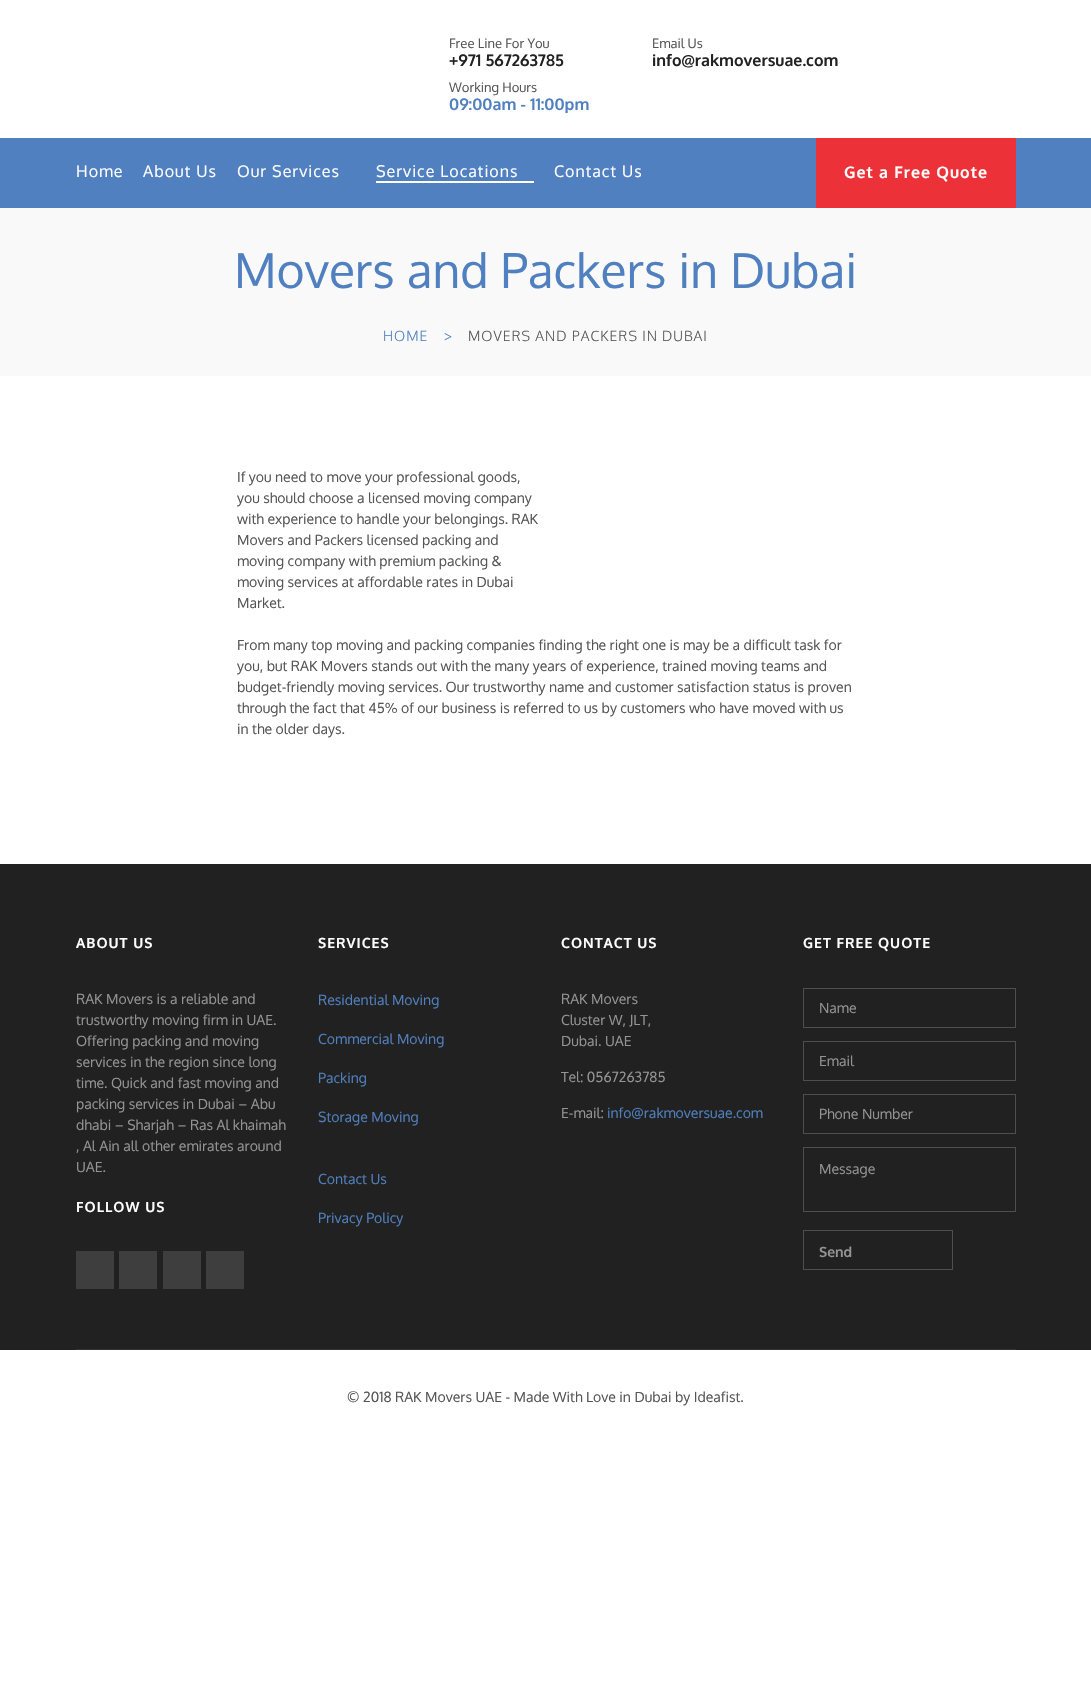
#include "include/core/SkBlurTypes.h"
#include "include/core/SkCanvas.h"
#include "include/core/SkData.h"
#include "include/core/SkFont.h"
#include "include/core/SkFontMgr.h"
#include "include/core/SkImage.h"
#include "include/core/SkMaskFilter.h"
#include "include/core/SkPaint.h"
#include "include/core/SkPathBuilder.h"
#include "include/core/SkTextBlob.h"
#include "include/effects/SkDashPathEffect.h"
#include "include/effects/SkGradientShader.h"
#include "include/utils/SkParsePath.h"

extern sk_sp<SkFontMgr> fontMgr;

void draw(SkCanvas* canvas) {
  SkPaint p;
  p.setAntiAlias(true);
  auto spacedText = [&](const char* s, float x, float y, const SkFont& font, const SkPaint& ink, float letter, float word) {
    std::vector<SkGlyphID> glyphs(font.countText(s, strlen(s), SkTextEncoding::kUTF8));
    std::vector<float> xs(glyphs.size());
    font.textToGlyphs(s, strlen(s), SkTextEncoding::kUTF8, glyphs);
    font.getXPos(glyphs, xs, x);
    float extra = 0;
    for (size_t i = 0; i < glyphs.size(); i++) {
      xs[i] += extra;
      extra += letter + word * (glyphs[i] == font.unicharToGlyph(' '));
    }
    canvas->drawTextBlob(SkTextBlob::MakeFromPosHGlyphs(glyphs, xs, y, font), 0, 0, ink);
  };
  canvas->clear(SK_ColorWHITE);
  p.setColor(SkColorSetRGB(80, 128, 191));
  canvas->drawRect(SkRect::MakeLTRB(0, 138, 1091, 208), p);
  p.setColor(SK_ColorWHITE);
  canvas->drawRect(SkRect::MakeLTRB(376, 181, 534, 183), p);
  p.setColor(SkColorSetRGB(236, 50, 56));
  canvas->drawRect(SkRect::MakeLTRB(816, 138, 1016, 208), p);
  p.setColor(SkColorSetRGB(249, 249, 249));
  canvas->drawRect(SkRect::MakeLTRB(0, 208, 1091, 376), p);
  p.setColor(SkColorSetRGB(33, 33, 33));
  canvas->drawRect(SkRect::MakeLTRB(0, 864, 1091, 1350), p);
  p.setColor(SkColorSetRGB(51, 51, 51));
  canvas->drawRect(SkRect::MakeLTRB(76, 1349, 1016, 1350), p);
  p.setColor(SkColorSetRGB(62, 62, 62));
  canvas->drawRect(SkRect::MakeLTRB(76, 1251, 114, 1289), p);
  canvas->drawRect(SkRect::MakeLTRB(119, 1251, 157, 1289), p);
  canvas->drawRect(SkRect::MakeLTRB(163, 1251, 201, 1289), p);
  canvas->drawRect(SkRect::MakeLTRB(206, 1251, 244, 1289), p);
  p.setStyle(SkPaint::kStroke_Style);
  p.setStrokeWidth(1);
  p.setColor(SkColorSetRGB(78, 78, 78));
  canvas->drawRect(SkRect::MakeLTRB(803.5f, 988.5f, 1015.5f, 1027.5f), p);
  canvas->drawRect(SkRect::MakeLTRB(803.5f, 1041.5f, 1015.5f, 1080.5f), p);
  canvas->drawRect(SkRect::MakeLTRB(803.5f, 1094.5f, 1015.5f, 1133.5f), p);
  canvas->drawRect(SkRect::MakeLTRB(803.5f, 1147.5f, 1015.5f, 1211.5f), p);
  canvas->drawRect(SkRect::MakeLTRB(803.5f, 1230.5f, 952.5f, 1269.5f), p);
  SkFont font1(fontMgr->matchFamilyStyle("Oxygen", SkFontStyle::Normal()), 13);
  font1.setSubpixel(true);
  p.setStyle(SkPaint::kFill_Style);
  p.setColor(SkColorSetRGB(85, 85, 85));
  canvas->drawString("Free Line For You", 449, 48, font1, p);
  SkFont font2(fontMgr->matchFamilyStyle("Oxygen", SkFontStyle::Bold()), 16);
  font2.setSubpixel(true);
  p.setColor(SkColorSetRGB(34, 34, 34));
  canvas->drawString("+971 567263785", 449, 66, font2, p);
  p.setColor(SkColorSetRGB(85, 85, 85));
  canvas->drawString("Email Us", 652, 48, font1, p);
  p.setColor(SkColorSetRGB(34, 34, 34));
  canvas->drawString("info@rakmoversuae.com", 652, 66, font2, p);
  p.setColor(SkColorSetRGB(85, 85, 85));
  canvas->drawString("Working Hours", 449, 92, font1, p);
  canvas->save();
  canvas->clipRect(SkRect::MakeLTRB(449, 74, 589, 113));
  p.setColor(SkColorSetRGB(80, 128, 191));
  canvas->drawString("09:00am - 11:00pm", 449, 110, font2, p);
  canvas->restore();
  SkFont font3(fontMgr->matchFamilyStyle("Oxygen", SkFontStyle::Normal()), 16);
  font3.setSubpixel(true);
  p.setColor(SK_ColorWHITE);
  spacedText("Home", 76, 177, font3, p, 1, 0);
  spacedText("About Us", 143, 177, font3, p, 1, 0);
  spacedText("Our Services", 237, 177, font3, p, 1, 0);
  spacedText("Service Locations", 376, 177, font3, p, 1, 0);
  spacedText("Contact Us", 554, 177, font3, p, 1, 0);
  spacedText("Get a Free Quote", 844, 178, font2, p, 1, 0);
  SkFont font4(fontMgr->matchFamilyStyle("Oxygen", SkFontStyle::Normal()), 48);
  font4.setSubpixel(true);
  p.setColor(SkColorSetRGB(80, 128, 191));
  canvas->drawString("Movers and Packers in Dubai", 234, 288, font4, p);
  SkFont font5(fontMgr->matchFamilyStyle("Oxygen", SkFontStyle(300, SkFontStyle::kNormal_Width, SkFontStyle::kUpright_Slant)), 14);
  font5.setSubpixel(true);
  spacedText("HOME", 383, 341, font5, p, 1, 0);
  spacedText(">", 444, 341, font5, p, 1, 0);
  p.setColor(SkColorSetRGB(85, 85, 85));
  spacedText("MOVERS AND PACKERS IN DUBAI", 468, 341, font5, p, 1, 0);
  SkFont font6(fontMgr->matchFamilyStyle("Oxygen", SkFontStyle::Normal()), 14);
  font6.setSubpixel(true);
  canvas->drawString("If you need to move your professional goods,", 237, 482, font6, p);
  canvas->drawString("you should choose a licensed moving company", 237, 503, font6, p);
  canvas->drawString("with experience to handle your belongings. RAK", 237, 524, font6, p);
  canvas->drawString("Movers and Packers licensed packing and", 237, 545, font6, p);
  canvas->drawString("moving company with premium packing &", 237, 566, font6, p);
  canvas->drawString("moving services at affordable rates in Dubai", 237, 587, font6, p);
  canvas->drawString("Market.", 237, 608, font6, p);
  canvas->drawString("From many top moving and packing companies finding the right one is may be a difficult task for", 237, 650, font6, p);
  canvas->drawString("you, but RAK Movers stands out with the many years of experience, trained moving teams and", 237, 671, font6, p);
  canvas->drawString("budget-friendly moving services. Our trustworthy name and customer satisfaction status is proven", 237, 692, font6, p);
  canvas->drawString("through the fact that 45% of our business is referred to us by customers who have moved with us", 237, 713, font6, p);
  canvas->drawString("in the older days.", 237, 734, font6, p);
  SkFont font7(fontMgr->matchFamilyStyle("Oxygen", SkFontStyle::Bold()), 14);
  font7.setSubpixel(true);
  p.setColor(SK_ColorWHITE);
  spacedText("ABOUT US", 76, 948, font7, p, 1, 0);
  p.setColor(SkColorSetRGB(148, 148, 148));
  canvas->drawString("RAK Movers is a reliable and", 76, 1004, font6, p);
  canvas->drawString("trustworthy moving firm in UAE.", 76, 1025, font6, p);
  canvas->drawString("Offering packing and moving", 76, 1046, font6, p);
  canvas->drawString("services in the region since long", 76, 1067, font6, p);
  canvas->drawString("time. Quick and fast moving and", 76, 1088, font6, p);
  canvas->drawString("packing services in Dubai – Abu", 76, 1109, font6, p);
  canvas->drawString("dhabi – Sharjah – Ras Al khaimah", 76, 1130, font6, p);
  canvas->drawString(", Al Ain all other emirates around", 76, 1151, font6, p);
  canvas->drawString("UAE.", 76, 1172, font6, p);
  p.setColor(SK_ColorWHITE);
  spacedText("FOLLOW US", 76, 1212, font7, p, 1, 0);
  spacedText("SERVICES", 318, 948, font7, p, 1, 0);
  p.setColor(SkColorSetRGB(80, 128, 191));
  canvas->drawString("Residential Moving", 318, 1005, font6, p);
  canvas->drawString("Commercial Moving", 318, 1044, font6, p);
  canvas->drawString("Packing", 318, 1083, font6, p);
  canvas->drawString("Storage Moving", 318, 1122, font6, p);
  canvas->drawString("Contact Us", 318, 1184, font6, p);
  canvas->drawString("Privacy Policy", 318, 1223, font6, p);
  p.setColor(SK_ColorWHITE);
  spacedText("CONTACT US", 561, 948, font7, p, 1, 0);
  p.setColor(SkColorSetRGB(148, 148, 148));
  canvas->drawString("RAK Movers", 561, 1004, font6, p);
  canvas->drawString("Cluster W, JLT,", 561, 1025, font6, p);
  canvas->drawString("Dubai. UAE", 561, 1046, font6, p);
  canvas->drawString("Tel: 0567263785", 561, 1082, font6, p);
  canvas->drawString("E-mail:", 561, 1118, font6, p);
  p.setColor(SkColorSetRGB(80, 128, 191));
  canvas->drawString("info@rakmoversuae.com", 607, 1118, font6, p);
  p.setColor(SK_ColorWHITE);
  spacedText("GET FREE QUOTE", 803, 948, font7, p, 1, 0);
  p.setColor(SkColorSetRGB(148, 148, 148));
  canvas->drawString("Name", 819, 1013, font6, p);
  canvas->drawString("Email", 819, 1066, font6, p);
  canvas->drawString("Phone Number", 819, 1119, font6, p);
  canvas->drawString("Message", 819, 1174, font6, p);
  canvas->drawString("Send", 819, 1257, font7, p);
  p.setColor(SkColorSetRGB(85, 85, 85));
  canvas->drawString("© 2018 RAK Movers UAE - Made With Love in Dubai by Ideafist.", 347, 1402, font6, p);
}
